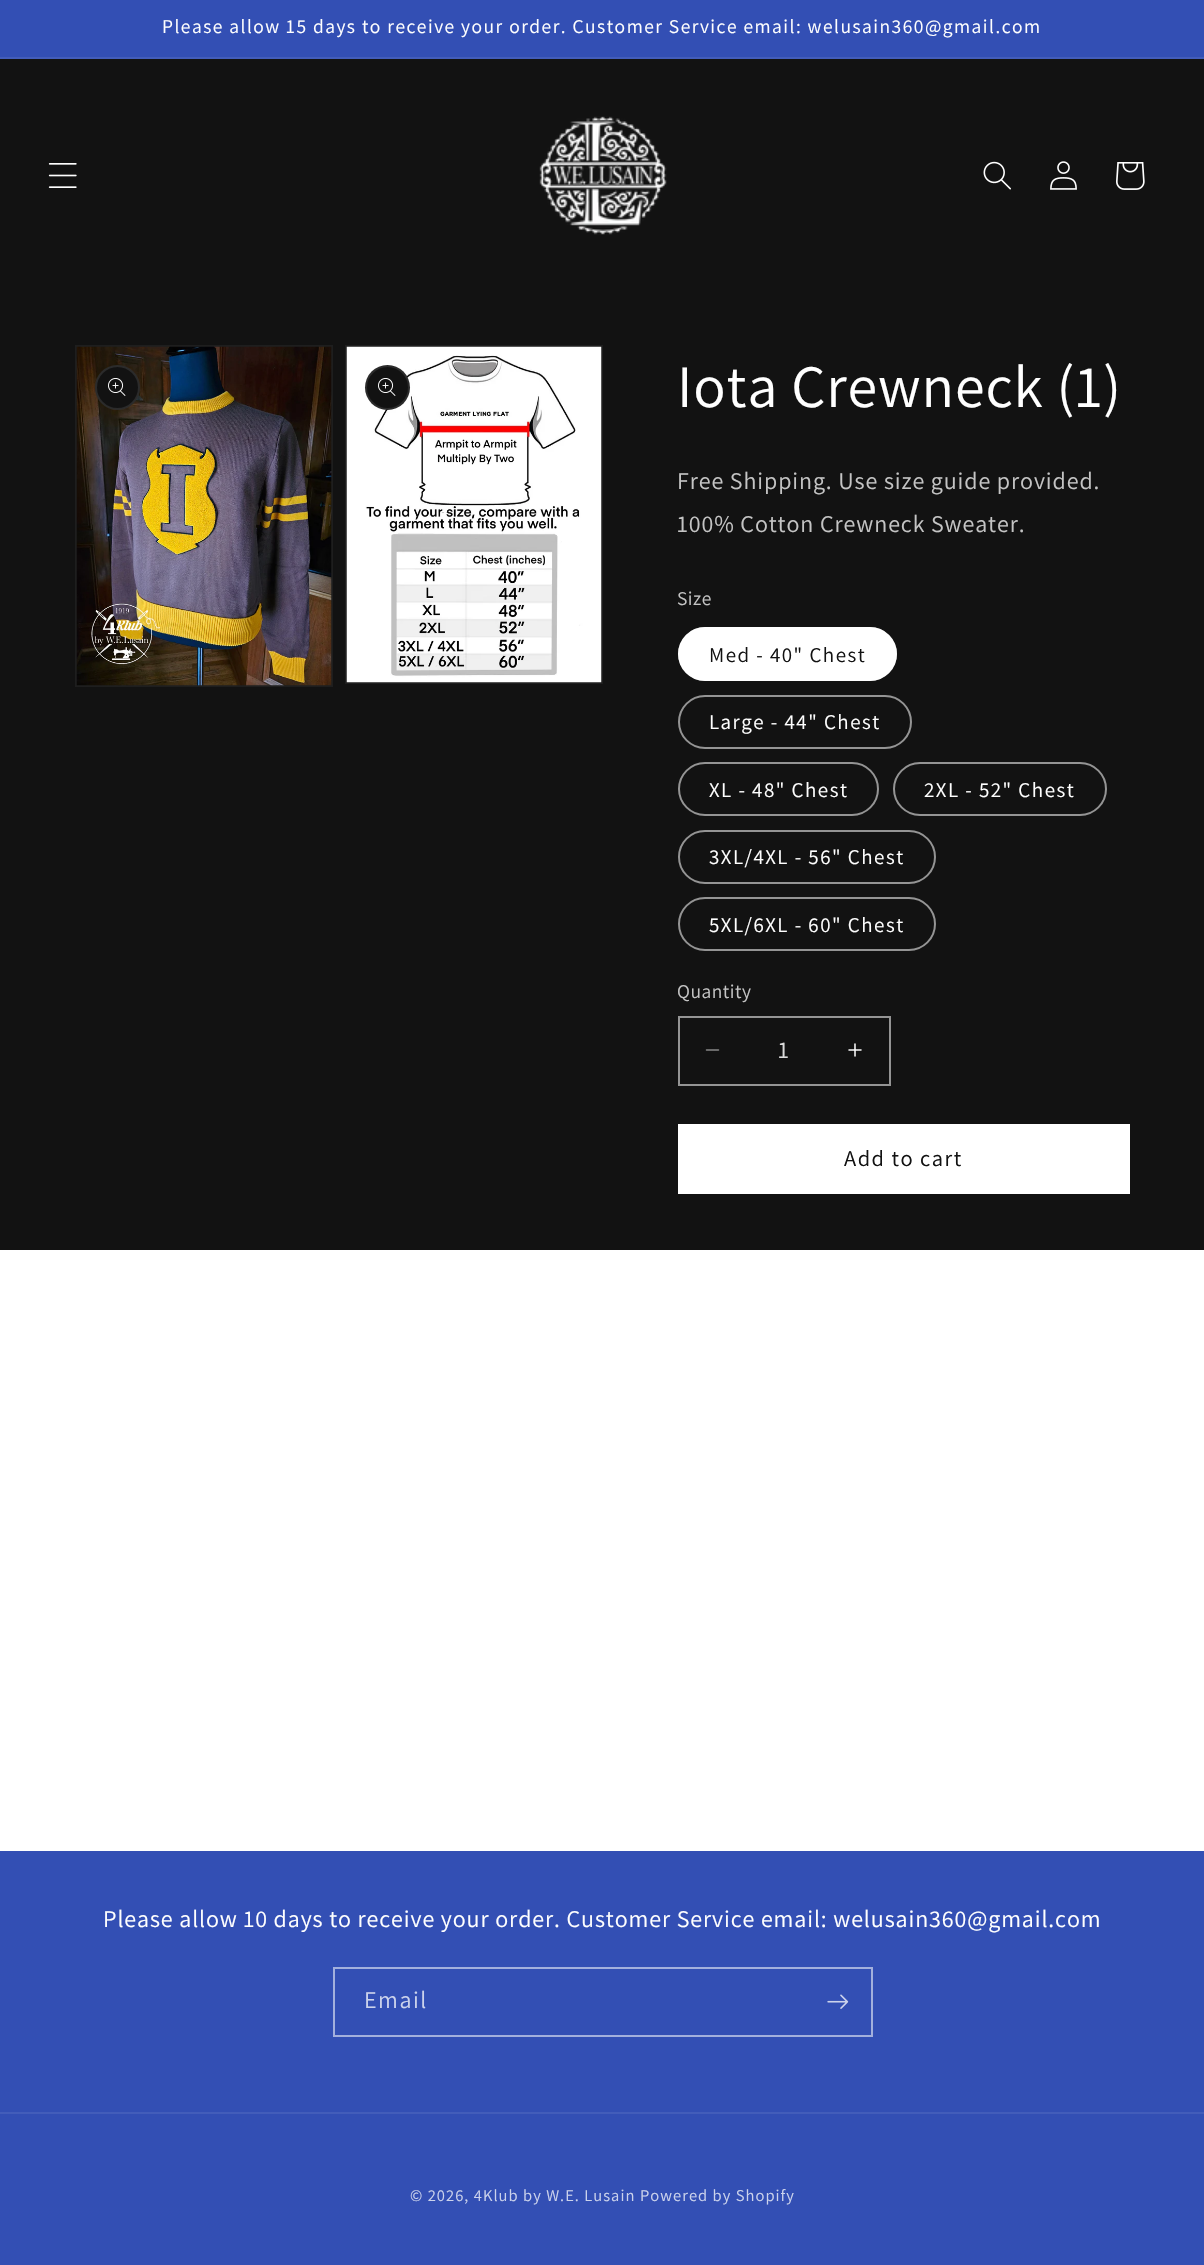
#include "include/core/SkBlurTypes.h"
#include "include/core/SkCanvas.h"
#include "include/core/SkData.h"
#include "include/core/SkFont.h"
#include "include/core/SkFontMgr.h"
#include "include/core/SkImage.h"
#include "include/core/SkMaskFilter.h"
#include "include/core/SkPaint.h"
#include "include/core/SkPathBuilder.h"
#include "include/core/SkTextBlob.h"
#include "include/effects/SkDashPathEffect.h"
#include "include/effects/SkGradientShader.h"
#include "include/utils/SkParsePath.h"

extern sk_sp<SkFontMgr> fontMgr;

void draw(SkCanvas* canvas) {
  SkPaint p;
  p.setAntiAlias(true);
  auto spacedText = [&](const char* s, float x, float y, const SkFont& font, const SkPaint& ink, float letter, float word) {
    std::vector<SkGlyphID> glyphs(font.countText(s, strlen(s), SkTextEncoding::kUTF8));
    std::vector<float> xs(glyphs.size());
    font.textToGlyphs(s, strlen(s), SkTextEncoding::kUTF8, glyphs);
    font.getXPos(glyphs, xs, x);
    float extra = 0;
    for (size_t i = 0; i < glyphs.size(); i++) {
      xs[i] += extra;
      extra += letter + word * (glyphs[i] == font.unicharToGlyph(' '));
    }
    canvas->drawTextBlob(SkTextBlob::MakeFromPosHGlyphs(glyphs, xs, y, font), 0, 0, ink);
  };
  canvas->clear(SK_ColorWHITE);
  p.setColor(SkColorSetRGB(51, 79, 180));
  canvas->drawRect(SkRect::MakeLTRB(0, 0, 1204, 57), p);
  p.setColor(SkColorSetRGB(67, 93, 186));
  canvas->drawRect(SkRect::MakeLTRB(0, 57, 1204, 59), p);
  p.setColor(SkColorSetRGB(18, 18, 18));
  canvas->drawRect(SkRect::MakeLTRB(0, 59, 1204, 1250), p);
  canvas->drawImageRect(SkImages::DeferredFromEncodedData(SkData::MakeFromFileName("images/1.png")), SkRect::MakeLTRB(48, 163, 77, 188), SkSamplingOptions());
  canvas->drawImageRect(SkImages::DeferredFromEncodedData(SkData::MakeFromFileName("images/2.png")), SkRect::MakeLTRB(539, 116, 667, 235), SkSamplingOptions());
  canvas->drawImageRect(SkImages::DeferredFromEncodedData(SkData::MakeFromFileName("images/3.png")), SkRect::MakeLTRB(983, 161, 1011, 190), SkSamplingOptions());
  canvas->drawImageRect(SkImages::DeferredFromEncodedData(SkData::MakeFromFileName("images/4.png")), SkRect::MakeLTRB(1050, 161, 1077, 190), SkSamplingOptions());
  canvas->drawImageRect(SkImages::DeferredFromEncodedData(SkData::MakeFromFileName("images/5.png")), SkRect::MakeLTRB(1116, 162, 1145, 190), SkSamplingOptions());
  p.setStyle(SkPaint::kStroke_Style);
  p.setStrokeWidth(2);
  p.setColor(SkColorSetRGB(30, 30, 30));
  canvas->drawRect(SkRect::MakeLTRB(76, 346, 332, 686), p);
  canvas->drawImageRect(SkImages::DeferredFromEncodedData(SkData::MakeFromFileName("images/6.png")), SkRect::MakeLTRB(76, 346, 332, 686), SkSamplingOptions());
  p.setStyle(SkPaint::kFill_Style);
  p.setColor(SkColorSetRGB(18, 18, 18));
  canvas->drawCircle(117.5f, 387.5f, 22.5f, p);
  p.setStyle(SkPaint::kStroke_Style);
  p.setColor(SkColorSetARGB(26, 255, 255, 255));
  canvas->drawCircle(117.5f, 387.5f, 21.5f, p);
  canvas->drawImageRect(SkImages::DeferredFromEncodedData(SkData::MakeFromFileName("images/7.png")), SkRect::MakeLTRB(108, 378, 126, 396), SkSamplingOptions());
  p.setColor(SkColorSetRGB(30, 30, 30));
  canvas->drawRect(SkRect::MakeLTRB(346, 346, 602, 683), p);
  canvas->drawImageRect(SkImages::DeferredFromEncodedData(SkData::MakeFromFileName("images/8.png")), SkRect::MakeLTRB(346, 346, 602, 683), SkSamplingOptions());
  p.setStyle(SkPaint::kFill_Style);
  p.setColor(SkColorSetRGB(18, 18, 18));
  canvas->drawCircle(387.5f, 387.5f, 22.5f, p);
  p.setStyle(SkPaint::kStroke_Style);
  p.setColor(SkColorSetARGB(26, 255, 255, 255));
  canvas->drawCircle(387.5f, 387.5f, 21.5f, p);
  canvas->drawImageRect(SkImages::DeferredFromEncodedData(SkData::MakeFromFileName("images/7.png")), SkRect::MakeLTRB(378, 378, 396, 396), SkSamplingOptions());
  p.setStyle(SkPaint::kFill_Style);
  p.setColor(SK_ColorWHITE);
  canvas->drawRoundRect(SkRect::MakeLTRB(678, 627, 897, 681), 27, 27, p);
  p.setStyle(SkPaint::kStroke_Style);
  p.setColor(SkColorSetARGB(140, 255, 255, 255));
  canvas->drawRoundRect(SkRect::MakeLTRB(679, 628, 896, 680), 26, 26, p);
  p.setColor(SkColorSetRGB(148, 148, 148));
  canvas->drawRoundRect(SkRect::MakeLTRB(679, 696, 911, 748), 26, 26, p);
  canvas->drawRoundRect(SkRect::MakeLTRB(679, 763, 878, 815), 26, 26, p);
  canvas->drawRoundRect(SkRect::MakeLTRB(894, 763, 1106, 815), 26, 26, p);
  canvas->drawRoundRect(SkRect::MakeLTRB(679, 831, 935, 883), 26, 26, p);
  canvas->drawRoundRect(SkRect::MakeLTRB(679, 898, 935, 950), 26, 26, p);
  canvas->drawImageRect(SkImages::DeferredFromEncodedData(SkData::MakeFromFileName("images/9.png")), SkRect::MakeLTRB(705, 1049, 720, 1051), SkSamplingOptions());
  canvas->drawImageRect(SkImages::DeferredFromEncodedData(SkData::MakeFromFileName("images/10.png")), SkRect::MakeLTRB(848, 1043, 862, 1057), SkSamplingOptions());
  canvas->drawRect(SkRect::MakeLTRB(679, 1017, 890, 1085), p);
  p.setStyle(SkPaint::kFill_Style);
  p.setColor(SK_ColorWHITE);
  canvas->drawRect(SkRect::MakeLTRB(678, 1124, 1130, 1194), p);
  p.setColor(SkColorSetRGB(51, 79, 180));
  canvas->drawRect(SkRect::MakeLTRB(0, 1851, 1204, 2265), p);
  p.setStyle(SkPaint::kStroke_Style);
  p.setColor(SkColorSetRGB(163, 176, 221));
  canvas->drawRect(SkRect::MakeLTRB(334, 1968, 872, 2036), p);
  canvas->drawImageRect(SkImages::DeferredFromEncodedData(SkData::MakeFromFileName("images/11.png")), SkRect::MakeLTRB(827, 1994, 849, 2009), SkSamplingOptions());
  p.setStyle(SkPaint::kFill_Style);
  p.setColor(SkColorSetRGB(67, 93, 186));
  canvas->drawRect(SkRect::MakeLTRB(0, 2112, 1204, 2114), p);
  SkFont font1(fontMgr->matchFamilyStyle("Assistant", SkFontStyle::Normal()), 19.5f);
  font1.setSubpixel(true);
  p.setColor(SK_ColorWHITE);
  spacedText("Please allow 15 days to receive your order. Customer Service email: welusain360@gmail.com", 162, 33, font1, p, 1.5f, 0);
  SkFont font2(fontMgr->matchFamilyStyle("Assistant", SkFontStyle::Normal()), 60);
  font2.setSubpixel(true);
  spacedText("Iota Crewneck (1)", 677, 407, font2, p, 0.9f, 0);
  SkFont font3(fontMgr->matchFamilyStyle("Assistant", SkFontStyle::Normal()), 24);
  font3.setSubpixel(true);
  p.setColor(SkColorSetRGB(196, 196, 196));
  spacedText("Free Shipping. Use size guide provided.", 677, 489, font3, p, 0.9f, 0);
  spacedText("100% Cotton Crewneck Sweater.", 677, 532, font3, p, 0.9f, 0);
  spacedText("Size", 677, 605, font1, p, 0.5f, 0);
  SkFont font4(fontMgr->matchFamilyStyle("Assistant", SkFontStyle::Normal()), 21);
  font4.setSubpixel(true);
  p.setColor(SkColorSetRGB(18, 18, 18));
  spacedText("Med - 40\" Chest", 709, 662, font4, p, 1.5f, 0);
  p.setColor(SK_ColorWHITE);
  spacedText("Large - 44\" Chest", 709, 729, font4, p, 1.5f, 0);
  spacedText("XL - 48\" Chest", 709, 797, font4, p, 1.5f, 0);
  spacedText("2XL - 52\" Chest", 924, 797, font4, p, 1.5f, 0);
  spacedText("3XL/4XL - 56\" Chest", 709, 864, font4, p, 1.5f, 0);
  spacedText("5XL/6XL - 60\" Chest", 709, 932, font4, p, 1.5f, 0);
  p.setColor(SkColorSetRGB(196, 196, 196));
  spacedText("Quantity", 677, 998, font1, p, 0.5f, 0);
  p.setColor(SkColorSetRGB(219, 219, 219));
  canvas->drawString("1", 778, 1058, font3, p);
  SkFont font5(fontMgr->matchFamilyStyle("Assistant", SkFontStyle::Normal()), 22.5f);
  font5.setSubpixel(true);
  p.setColor(SkColorSetRGB(18, 18, 18));
  spacedText("Add to cart", 844, 1166, font5, p, 1.5f, 0);
  p.setColor(SK_ColorWHITE);
  spacedText("Please allow 10 days to receive your order. Customer Service email: welusain360@gmail.com", 103, 1927, font3, p, 0.9f, 0);
  p.setColor(SkColorSetRGB(204, 211, 236));
  spacedText("Email", 364, 2008, font3, p, 1.5f, 0);
  SkFont font6(fontMgr->matchFamilyStyle("Assistant", SkFontStyle::Normal()), 16.5f);
  font6.setSubpixel(true);
  spacedText("© 2026, 4Klub by W.E. Lusain", 410, 2201, font6, p, 1.05f, 0);
  spacedText("Powered by Shopify", 640, 2201, font6, p, 1.05f, 0);
}
